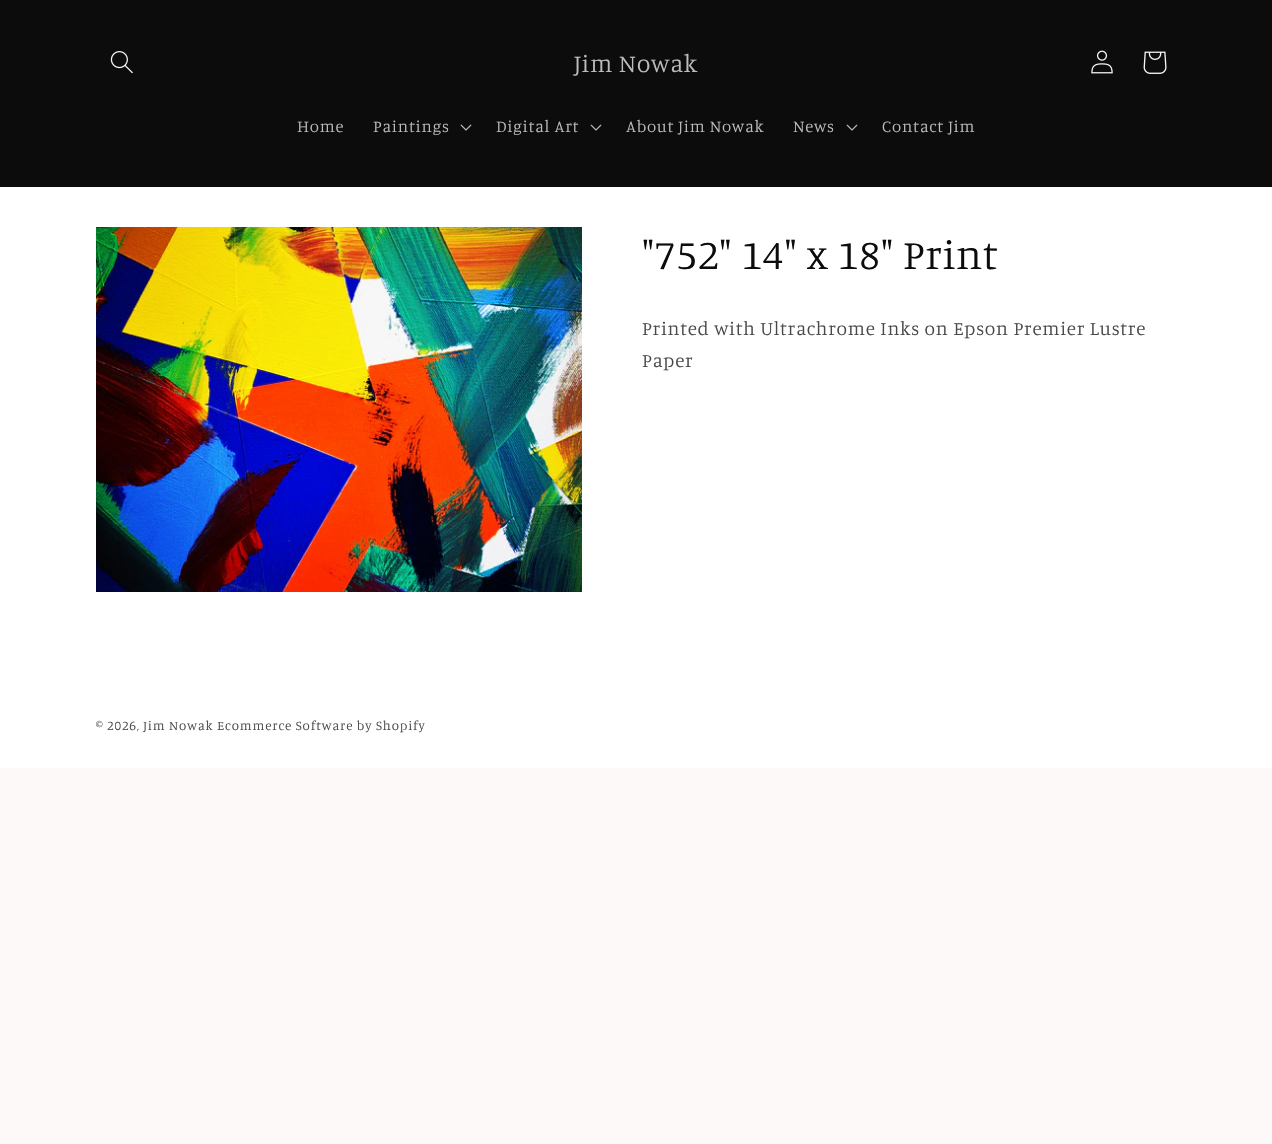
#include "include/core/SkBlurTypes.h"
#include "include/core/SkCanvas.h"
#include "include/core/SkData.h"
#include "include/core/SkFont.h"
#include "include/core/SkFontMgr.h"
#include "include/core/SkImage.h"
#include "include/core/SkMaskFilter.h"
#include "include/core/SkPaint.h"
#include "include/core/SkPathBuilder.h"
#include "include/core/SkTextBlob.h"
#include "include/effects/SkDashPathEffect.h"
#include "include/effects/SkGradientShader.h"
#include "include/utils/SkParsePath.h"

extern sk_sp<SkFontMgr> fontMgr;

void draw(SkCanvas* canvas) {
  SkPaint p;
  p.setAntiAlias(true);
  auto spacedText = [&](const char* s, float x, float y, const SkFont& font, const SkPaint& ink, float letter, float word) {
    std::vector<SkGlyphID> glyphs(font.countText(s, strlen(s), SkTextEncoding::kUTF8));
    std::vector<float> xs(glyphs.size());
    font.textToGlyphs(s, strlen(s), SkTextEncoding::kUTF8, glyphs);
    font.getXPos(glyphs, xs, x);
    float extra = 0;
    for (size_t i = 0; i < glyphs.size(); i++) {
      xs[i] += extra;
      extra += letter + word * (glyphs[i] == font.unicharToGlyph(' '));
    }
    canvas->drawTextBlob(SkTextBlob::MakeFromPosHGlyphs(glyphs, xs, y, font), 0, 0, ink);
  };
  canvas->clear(SkColorSetRGB(254, 249, 249));
  p.setColor(SkColorSetRGB(12, 12, 12));
  canvas->drawRect(SkRect::MakeLTRB(0, 0, 1272, 187), p);
  canvas->drawImageRect(SkImages::DeferredFromEncodedData(SkData::MakeFromFileName("images/1.png")), SkRect::MakeLTRB(110, 51, 133, 74), SkSamplingOptions());
  canvas->drawImageRect(SkImages::DeferredFromEncodedData(SkData::MakeFromFileName("images/2.png")), SkRect::MakeLTRB(1091, 50, 1113, 74), SkSamplingOptions());
  canvas->drawImageRect(SkImages::DeferredFromEncodedData(SkData::MakeFromFileName("images/3.png")), SkRect::MakeLTRB(1143, 51, 1167, 74), SkSamplingOptions());
  canvas->drawImageRect(SkImages::DeferredFromEncodedData(SkData::MakeFromFileName("images/4.png")), SkRect::MakeLTRB(460, 124, 472, 131), SkSamplingOptions());
  canvas->drawImageRect(SkImages::DeferredFromEncodedData(SkData::MakeFromFileName("images/4.png")), SkRect::MakeLTRB(590, 124, 602, 131), SkSamplingOptions());
  canvas->drawImageRect(SkImages::DeferredFromEncodedData(SkData::MakeFromFileName("images/4.png")), SkRect::MakeLTRB(846, 124, 858, 131), SkSamplingOptions());
  p.setColor(SK_ColorWHITE);
  canvas->drawRect(SkRect::MakeLTRB(0, 187, 1272, 768), p);
  canvas->drawImageRect(SkImages::DeferredFromEncodedData(SkData::MakeFromFileName("images/5.png")), SkRect::MakeLTRB(96, 227, 582, 592), SkSamplingOptions());
  SkFont font1(fontMgr->matchFamilyStyle("Manuale", SkFontStyle(300, SkFontStyle::kNormal_Width, SkFontStyle::kUpright_Slant)), 25);
  font1.setSubpixel(true);
  p.setColor(SkColorSetRGB(188, 188, 188));
  spacedText("Jim Nowak", 574, 72, font1, p, 0.6f, 0);
  SkFont font2(fontMgr->matchFamilyStyle("Manuale", SkFontStyle(300, SkFontStyle::kNormal_Width, SkFontStyle::kUpright_Slant)), 16.75f);
  font2.setSubpixel(true);
  spacedText("Home", 297, 132, font2, p, 0.72f, 0);
  spacedText("Paintings", 373, 132, font2, p, 0.72f, 0);
  spacedText("Digital Art", 496, 132, font2, p, 0.72f, 0);
  spacedText("About Jim Nowak", 626, 132, font2, p, 0.72f, 0);
  spacedText("News", 793, 132, font2, p, 0.72f, 0);
  spacedText("Contact Jim", 882, 132, font2, p, 0.72f, 0);
  SkFont font3(fontMgr->matchFamilyStyle("Manuale", SkFontStyle(300, SkFontStyle::kNormal_Width, SkFontStyle::kUpright_Slant)), 42);
  font3.setSubpixel(true);
  p.setColor(SkColorSetRGB(12, 12, 12));
  spacedText("\"752\" 14\" x 18\" Print", 642, 269, font3, p, 0.6f, 0);
  SkFont font4(fontMgr->matchFamilyStyle("Manuale", SkFontStyle(300, SkFontStyle::kNormal_Width, SkFontStyle::kUpright_Slant)), 19.2f);
  font4.setSubpixel(true);
  p.setColor(SkColorSetRGB(73, 73, 73));
  spacedText("Printed with Ultrachrome Inks on Epson Premier Lustre", 642, 335, font4, p, 0.72f, 0);
  spacedText("Paper", 642, 367, font4, p, 0.72f, 0);
  SkFont font5(fontMgr->matchFamilyStyle("Manuale", SkFontStyle(300, SkFontStyle::kNormal_Width, SkFontStyle::kUpright_Slant)), 13.2f);
  font5.setSubpixel(true);
  spacedText("© 2026, Jim Nowak Ecommerce Software by Shopify", 96, 730, font5, p, 0.85f, 0);
}
